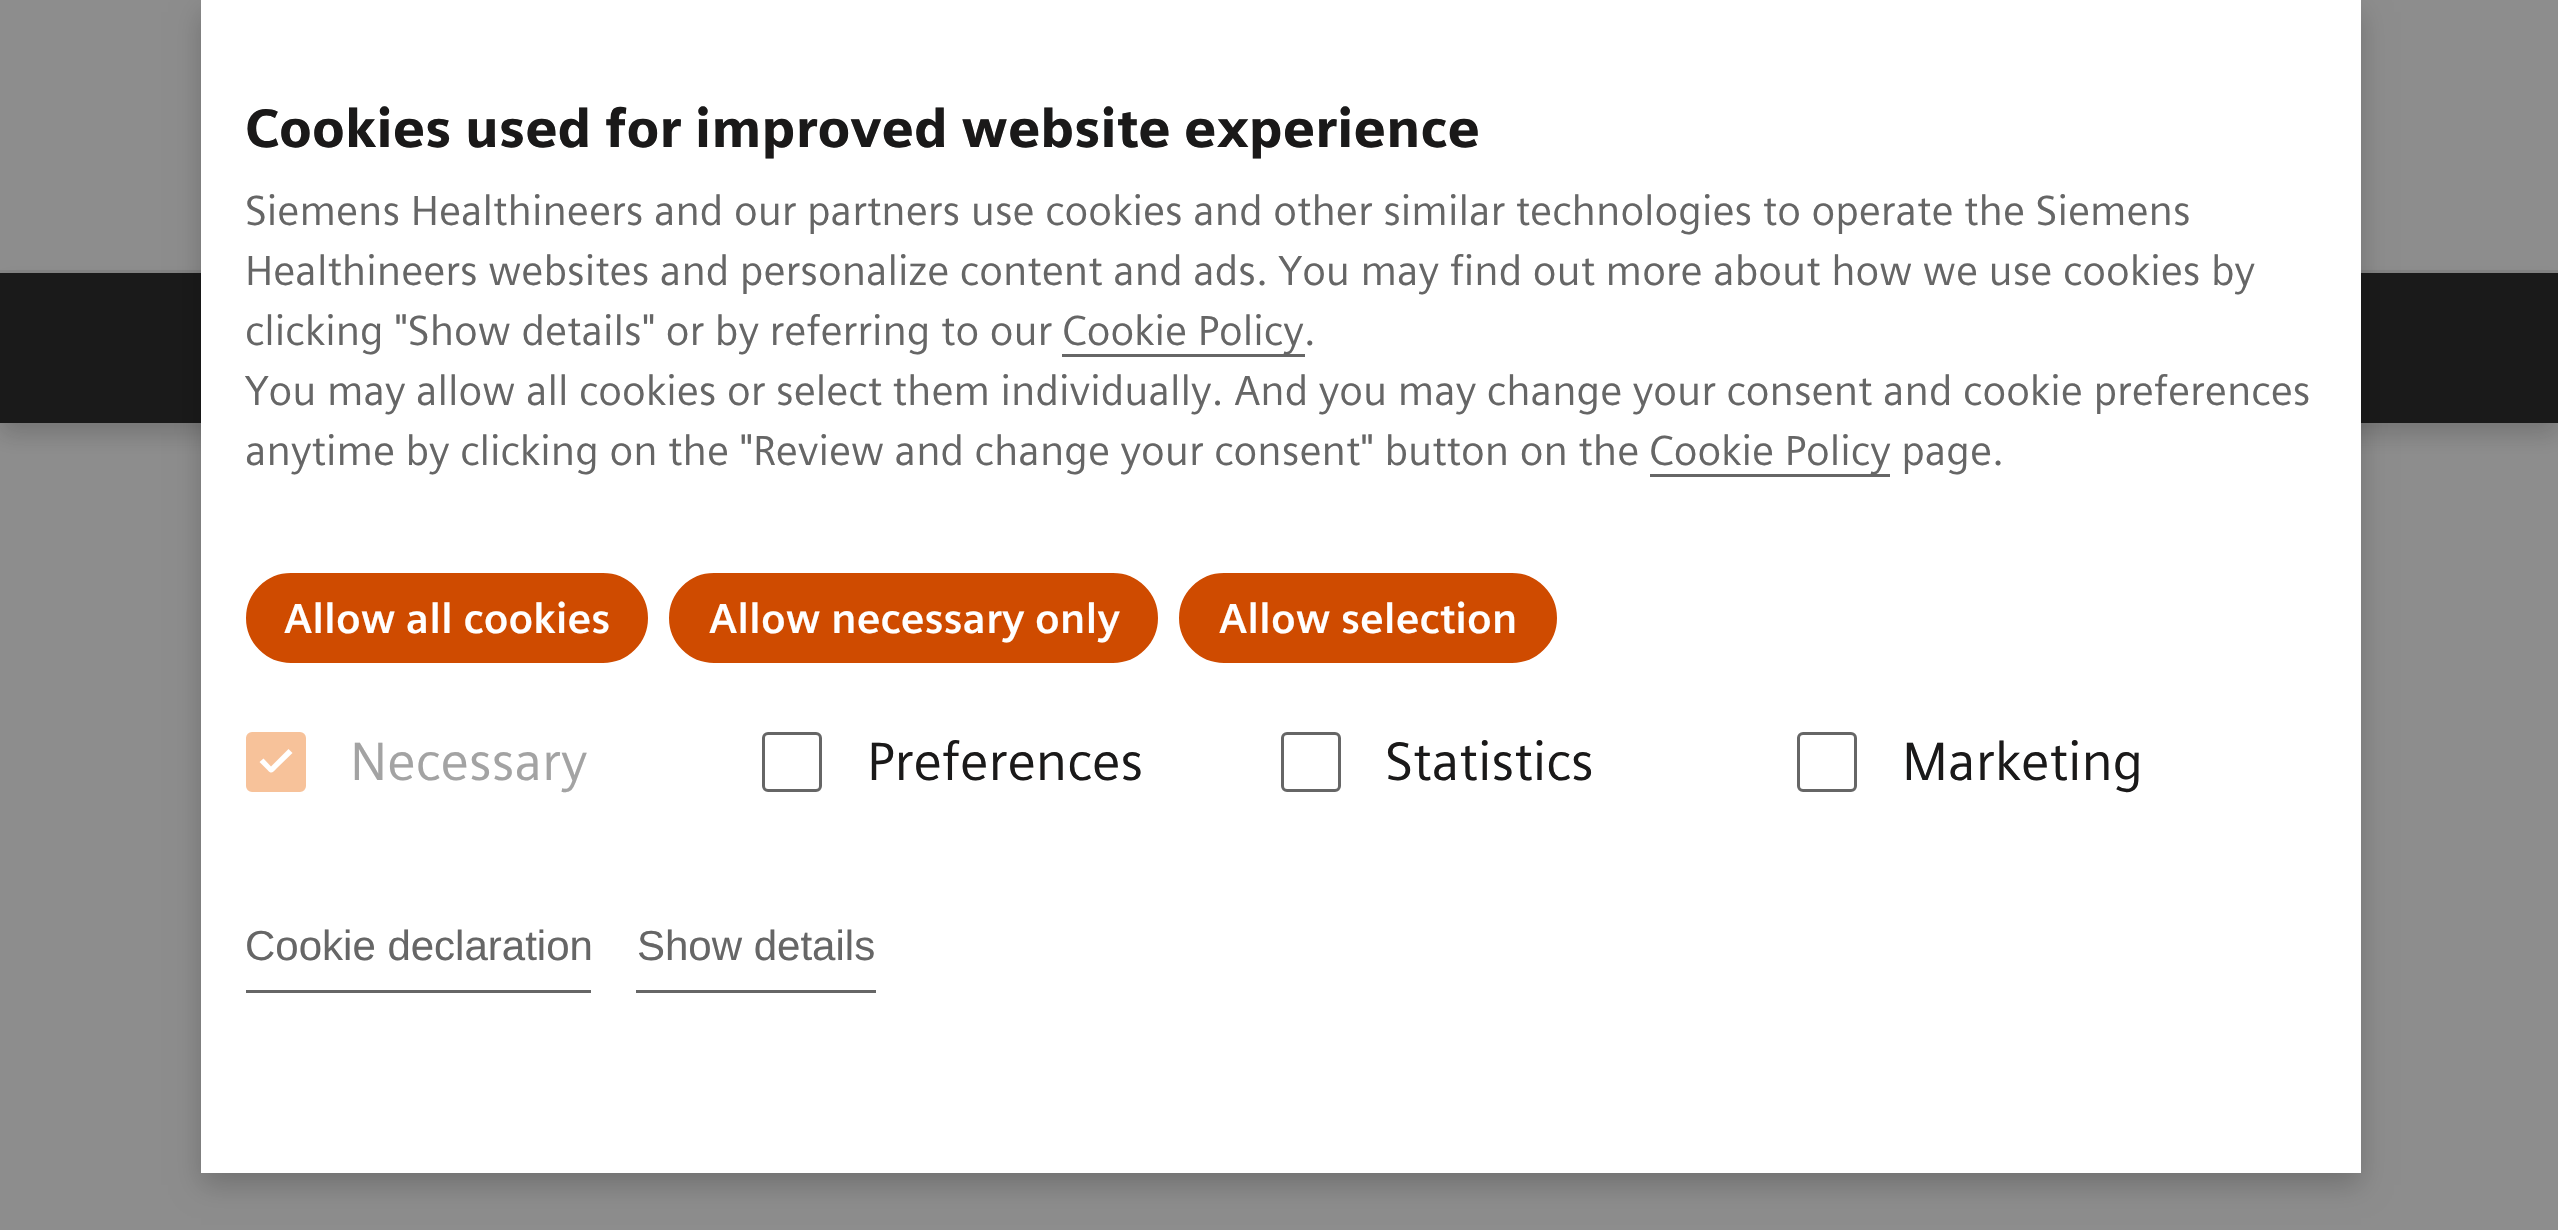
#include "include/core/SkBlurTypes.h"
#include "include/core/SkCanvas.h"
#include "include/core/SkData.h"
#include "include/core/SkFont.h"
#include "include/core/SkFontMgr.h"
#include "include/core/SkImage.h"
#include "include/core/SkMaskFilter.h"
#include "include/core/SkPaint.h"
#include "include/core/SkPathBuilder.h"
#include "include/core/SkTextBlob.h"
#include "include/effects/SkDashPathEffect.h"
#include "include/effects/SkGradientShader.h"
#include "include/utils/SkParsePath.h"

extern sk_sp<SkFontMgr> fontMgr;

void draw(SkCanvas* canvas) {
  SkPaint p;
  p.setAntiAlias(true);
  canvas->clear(SkColorSetRGB(141, 141, 141));
  p.setColor(SkColorSetRGB(132, 132, 132));
  canvas->drawRect(SkRect::MakeLTRB(0, 270, 2558, 273), p);
  p.setColor(SkColorSetARGB(51, 27, 27, 27));
  p.setMaskFilter(SkMaskFilter::MakeBlur(kNormal_SkBlurStyle, 11));
  canvas->drawRect(SkRect::MakeLTRB(0, 285, 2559, 435), p);
  p.setMaskFilter(nullptr);
  p.setColor(SkColorSetRGB(26, 26, 26));
  canvas->drawRect(SkRect::MakeLTRB(0, 273, 2558, 423), p);
  p.setColor(SkColorSetARGB(51, 0, 0, 0));
  p.setMaskFilter(SkMaskFilter::MakeBlur(kNormal_SkBlurStyle, 13.5f));
  canvas->drawRect(SkRect::MakeLTRB(201, 12, 2361, 1185), p);
  p.setMaskFilter(nullptr);
  p.setColor(SK_ColorWHITE);
  canvas->drawRect(SkRect::MakeLTRB(201, 0, 2361, 1173), p);
  p.setColor(SkColorSetRGB(102, 102, 102));
  canvas->drawRect(SkRect::MakeLTRB(1062, 354, 1305, 357), p);
  canvas->drawRect(SkRect::MakeLTRB(1650, 474, 1890, 477), p);
  p.setColor(SkColorSetRGB(207, 75, 0));
  canvas->drawRoundRect(SkRect::MakeLTRB(247.5f, 574.5f, 646.5f, 661.5f), 43.5f, 43.5f, p);
  p.setStyle(SkPaint::kStroke_Style);
  p.setStrokeWidth(3);
  canvas->drawRoundRect(SkRect::MakeLTRB(247.5f, 574.5f, 646.5f, 661.5f), 43.5f, 43.5f, p);
  p.setStyle(SkPaint::kFill_Style);
  canvas->drawRoundRect(SkRect::MakeLTRB(670.5f, 574.5f, 1156.5f, 661.5f), 43.5f, 43.5f, p);
  p.setStyle(SkPaint::kStroke_Style);
  canvas->drawRoundRect(SkRect::MakeLTRB(670.5f, 574.5f, 1156.5f, 661.5f), 43.5f, 43.5f, p);
  p.setStyle(SkPaint::kFill_Style);
  canvas->drawRoundRect(SkRect::MakeLTRB(1180.5f, 574.5f, 1555.5f, 661.5f), 43.5f, 43.5f, p);
  p.setStyle(SkPaint::kStroke_Style);
  canvas->drawRoundRect(SkRect::MakeLTRB(1180.5f, 574.5f, 1555.5f, 661.5f), 43.5f, 43.5f, p);
  p.setStyle(SkPaint::kFill_Style);
  p.setColor(SkColorSetRGB(247, 194, 154));
  canvas->drawRoundRect(SkRect::MakeLTRB(247.5f, 733.5f, 304.5f, 790.5f), 4.5f, 4.5f, p);
  p.setStyle(SkPaint::kStroke_Style);
  canvas->drawRoundRect(SkRect::MakeLTRB(247.5f, 733.5f, 304.5f, 790.5f), 4.5f, 4.5f, p);
  p.setStyle(SkPaint::kFill_Style);
  p.setColor(SK_ColorWHITE);
  canvas->drawPath(SkPathBuilder().moveTo(292.5f, 753).lineTo(276.5f, 768.5f).cubicTo(272.5f, 772.5f, 271.5f, 774.5f, 267.5f, 770).lineTo(259.5f, 762).lineTo(263.5f, 758.5f).lineTo(271, 766.5f).lineTo(288.5f, 749).close().detach(), p);
  p.setStyle(SkPaint::kStroke_Style);
  p.setColor(SkColorSetRGB(102, 102, 102));
  canvas->drawRoundRect(SkRect::MakeLTRB(763.5f, 733.5f, 820.5f, 790.5f), 4.5f, 4.5f, p);
  canvas->drawRoundRect(SkRect::MakeLTRB(1282.5f, 733.5f, 1339.5f, 790.5f), 4.5f, 4.5f, p);
  canvas->drawRoundRect(SkRect::MakeLTRB(1798.5f, 733.5f, 1855.5f, 790.5f), 4.5f, 4.5f, p);
  p.setStyle(SkPaint::kFill_Style);
  canvas->drawRect(SkRect::MakeLTRB(246, 990, 591, 993), p);
  canvas->drawRect(SkRect::MakeLTRB(636, 990, 876, 993), p);
  SkFont font1(fontMgr->matchFamilyStyle("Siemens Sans", SkFontStyle(900, SkFontStyle::kNormal_Width, SkFontStyle::kUpright_Slant)), 54);
  font1.setSubpixel(true);
  p.setColor(SkColorSetRGB(26, 25, 25));
  canvas->drawString("Cookies used for improved website experience", 245, 147, font1, p);
  SkFont font2(fontMgr->matchFamilyStyle("Siemens Sans", SkFontStyle::Normal()), 42);
  font2.setSubpixel(true);
  p.setColor(SkColorSetRGB(102, 102, 102));
  canvas->drawString("Siemens Healthineers and our partners use cookies and other similar technologies to operate the Siemens", 245, 225, font2, p);
  canvas->drawString("Healthineers websites and personalize content and ads. You may find out more about how we use cookies by", 245, 285, font2, p);
  canvas->drawString("clicking \"Show details\" or by referring to our", 245, 345, font2, p);
  canvas->drawString("Cookie Policy.", 1062, 345, font2, p);
  canvas->drawString("You may allow all cookies or select them individually. And you may change your consent and cookie preferences", 245, 405, font2, p);
  canvas->drawString("anytime by clicking on the \"Review and change your consent\" button on the", 245, 465, font2, p);
  canvas->drawString("Cookie Policy page.", 1649, 465, font2, p);
  SkFont font3(fontMgr->matchFamilyStyle("Siemens Sans", SkFontStyle::Bold()), 42);
  font3.setSubpixel(true);
  p.setColor(SK_ColorWHITE);
  canvas->drawString("Allow all cookies", 284, 633, font3, p);
  canvas->drawString("Allow necessary only", 709, 633, font3, p);
  canvas->drawString("Allow selection", 1219, 633, font3, p);
  SkFont font4(fontMgr->matchFamilyStyle("Siemens Sans", SkFontStyle::Normal()), 54);
  font4.setSubpixel(true);
  p.setColor(SkColorSetRGB(163, 163, 163));
  canvas->drawString("Necessary", 350, 780, font4, p);
  p.setColor(SkColorSetRGB(26, 25, 25));
  canvas->drawString("Preferences", 867, 780, font4, p);
  canvas->drawString("Statistics", 1385, 780, font4, p);
  canvas->drawString("Marketing", 1902, 780, font4, p);
  SkFont font5(fontMgr->matchFamilyStyle("Liberation Sans", SkFontStyle::Normal()), 42);
  font5.setSubpixel(true);
  p.setColor(SkColorSetRGB(102, 102, 102));
  canvas->drawString("Cookie declaration", 245, 960, font5, p);
  canvas->drawString("Show details", 637, 960, font5, p);
}
